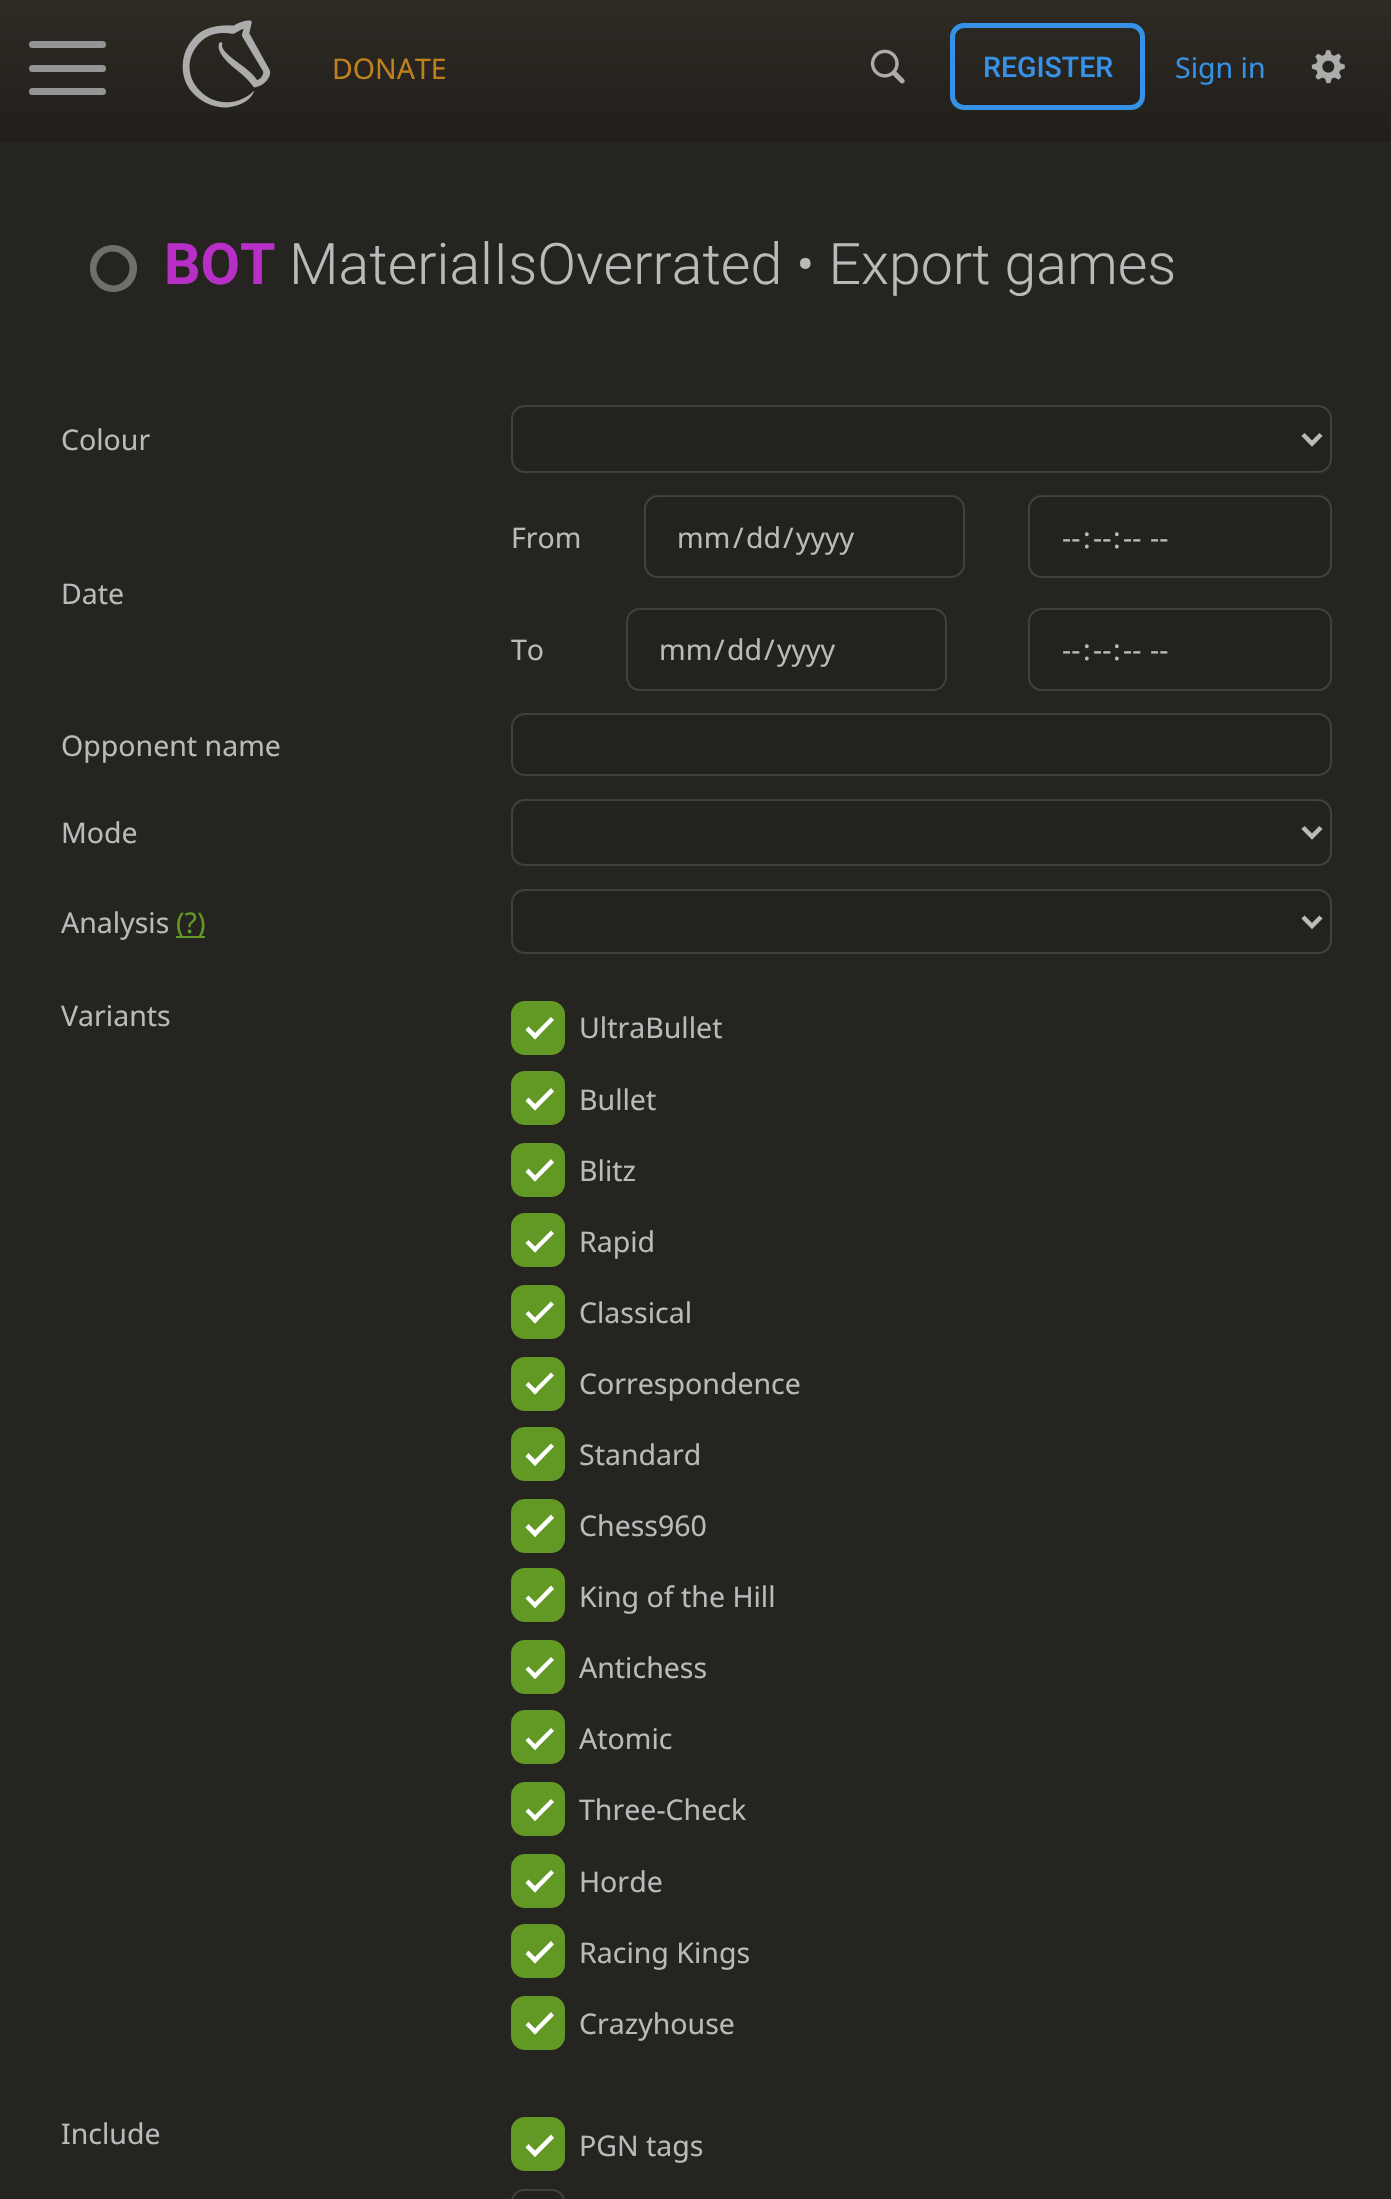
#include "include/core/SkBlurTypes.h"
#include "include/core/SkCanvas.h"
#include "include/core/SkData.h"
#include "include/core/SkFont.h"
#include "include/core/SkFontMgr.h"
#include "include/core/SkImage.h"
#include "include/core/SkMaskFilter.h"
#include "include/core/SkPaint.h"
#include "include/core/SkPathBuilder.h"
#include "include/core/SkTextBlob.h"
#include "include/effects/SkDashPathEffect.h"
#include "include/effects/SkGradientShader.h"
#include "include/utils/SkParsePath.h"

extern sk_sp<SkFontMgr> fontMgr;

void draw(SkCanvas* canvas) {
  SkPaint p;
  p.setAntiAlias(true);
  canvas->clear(SK_ColorWHITE);
  {
    const SkColor colors[] = {SkColorSetRGB(46, 42, 36), SkColorSetRGB(22, 21, 18)};
    const float stops[] = {0, 0.09f};
    const SkPoint ends[] = {{696, 0}, {696, 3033}};
    p.setShader(SkGradientShader::MakeLinear(ends, colors, stops, 2, SkTileMode::kClamp));
    p.setAlpha(255);
  }
  canvas->drawRect(SkRect::MakeLTRB(0, 0, 1391, 142), p);
  p.setShader(nullptr);
  p.setColor(SkColorSetRGB(148, 148, 148));
  canvas->drawRoundRect(SkRect::MakeLTRB(29, 65, 106, 72), 3.5f, 3.5f, p);
  canvas->drawRoundRect(SkRect::MakeLTRB(29, 41, 106, 48), 3.5f, 3.5f, p);
  canvas->drawRoundRect(SkRect::MakeLTRB(29, 88, 106, 95), 3.5f, 3.5f, p);
  canvas->drawImageRect(SkImages::DeferredFromEncodedData(SkData::MakeFromFileName("images/1.png")), SkRect::MakeLTRB(182, 20, 271, 108), SkSamplingOptions());
  canvas->drawImageRect(SkImages::DeferredFromEncodedData(SkData::MakeFromFileName("images/2.png")), SkRect::MakeLTRB(870, 49, 905, 84), SkSamplingOptions());
  p.setStyle(SkPaint::kStroke_Style);
  p.setStrokeWidth(5);
  p.setColor(SkColorSetRGB(54, 146, 231));
  canvas->drawRoundRect(SkRect::MakeLTRB(952.5f, 25.5f, 1142.5f, 107.5f), 11.5f, 11.5f, p);
  canvas->drawImageRect(SkImages::DeferredFromEncodedData(SkData::MakeFromFileName("images/3.png")), SkRect::MakeLTRB(1311, 50, 1345, 84), SkSamplingOptions());
  p.setStyle(SkPaint::kFill_Style);
  p.setColor(SkColorSetRGB(38, 36, 33));
  canvas->drawRect(SkRect::MakeLTRB(0, 142, 1391, 2199), p);
  p.setColor(SkColorSetRGB(112, 111, 110));
  canvas->drawPath(SkPathBuilder().moveTo(121, 254).cubicTo(102, 243, 86, 272, 105, 283).cubicTo(124, 294, 140, 265, 121, 254).close().moveTo(134, 257).cubicTo(136, 260, 137, 264, 137, 268).cubicTo(137, 293, 105, 301, 93, 280).cubicTo(91, 277, 90, 273, 90, 268).cubicTo(90, 244, 121, 236, 134, 257).close().detach(), p);
  p.setColor(SkColorSetRGB(36, 34, 30));
  canvas->drawRoundRect(SkRect::MakeLTRB(512, 406, 1331, 472), 13, 13, p);
  p.setStyle(SkPaint::kStroke_Style);
  p.setStrokeWidth(2);
  p.setColor(SkColorSetRGB(64, 64, 64));
  canvas->drawRoundRect(SkRect::MakeLTRB(512, 406, 1331, 472), 13, 13, p);
  p.setStrokeWidth(4.5f);
  p.setColor(SkColorSetRGB(186, 186, 186));
  canvas->drawPath(SkPathBuilder().moveTo(1303, 434.5f).lineTo(1312, 443.5f).lineTo(1321, 434.5f).detach(), p);
  p.setStyle(SkPaint::kFill_Style);
  p.setColor(SkColorSetRGB(36, 34, 30));
  canvas->drawRoundRect(SkRect::MakeLTRB(645, 496, 964, 577), 13, 13, p);
  p.setStyle(SkPaint::kStroke_Style);
  p.setStrokeWidth(2);
  p.setColor(SkColorSetRGB(64, 64, 64));
  canvas->drawRoundRect(SkRect::MakeLTRB(645, 496, 964, 577), 13, 13, p);
  p.setStyle(SkPaint::kFill_Style);
  p.setColor(SkColorSetRGB(36, 34, 30));
  canvas->drawRoundRect(SkRect::MakeLTRB(1029, 496, 1331, 577), 13, 13, p);
  p.setStyle(SkPaint::kStroke_Style);
  p.setColor(SkColorSetRGB(64, 64, 64));
  canvas->drawRoundRect(SkRect::MakeLTRB(1029, 496, 1331, 577), 13, 13, p);
  p.setStyle(SkPaint::kFill_Style);
  p.setColor(SkColorSetRGB(36, 34, 30));
  canvas->drawRoundRect(SkRect::MakeLTRB(627, 609, 946, 690), 13, 13, p);
  p.setStyle(SkPaint::kStroke_Style);
  p.setColor(SkColorSetRGB(64, 64, 64));
  canvas->drawRoundRect(SkRect::MakeLTRB(627, 609, 946, 690), 13, 13, p);
  p.setStyle(SkPaint::kFill_Style);
  p.setColor(SkColorSetRGB(36, 34, 30));
  canvas->drawRoundRect(SkRect::MakeLTRB(1029, 609, 1331, 690), 13, 13, p);
  p.setStyle(SkPaint::kStroke_Style);
  p.setColor(SkColorSetRGB(64, 64, 64));
  canvas->drawRoundRect(SkRect::MakeLTRB(1029, 609, 1331, 690), 13, 13, p);
  p.setStyle(SkPaint::kFill_Style);
  p.setColor(SkColorSetRGB(36, 34, 30));
  canvas->drawRoundRect(SkRect::MakeLTRB(512, 714, 1331, 775), 13, 13, p);
  p.setStyle(SkPaint::kStroke_Style);
  p.setColor(SkColorSetRGB(64, 64, 64));
  canvas->drawRoundRect(SkRect::MakeLTRB(512, 714, 1331, 775), 13, 13, p);
  p.setStyle(SkPaint::kFill_Style);
  p.setColor(SkColorSetRGB(36, 34, 30));
  canvas->drawRoundRect(SkRect::MakeLTRB(512, 800, 1331, 865), 13, 13, p);
  p.setStyle(SkPaint::kStroke_Style);
  p.setColor(SkColorSetRGB(64, 64, 64));
  canvas->drawRoundRect(SkRect::MakeLTRB(512, 800, 1331, 865), 13, 13, p);
  p.setStrokeWidth(4.5f);
  p.setColor(SkColorSetRGB(186, 186, 186));
  canvas->drawPath(SkPathBuilder().moveTo(1303, 827.5f).lineTo(1312, 836.5f).lineTo(1321, 827.5f).detach(), p);
  p.setStyle(SkPaint::kFill_Style);
  p.setColor(SkColorSetRGB(98, 153, 36));
  canvas->drawRect(SkRect::MakeLTRB(176, 936, 205, 938), p);
  p.setColor(SkColorSetRGB(36, 34, 30));
  canvas->drawRoundRect(SkRect::MakeLTRB(512, 890, 1331, 953), 13, 13, p);
  p.setStyle(SkPaint::kStroke_Style);
  p.setStrokeWidth(2);
  p.setColor(SkColorSetRGB(64, 64, 64));
  canvas->drawRoundRect(SkRect::MakeLTRB(512, 890, 1331, 953), 13, 13, p);
  p.setStrokeWidth(4.5f);
  p.setColor(SkColorSetRGB(186, 186, 186));
  canvas->drawPath(SkPathBuilder().moveTo(1303, 917).lineTo(1312, 926).lineTo(1321, 917).detach(), p);
  p.setStyle(SkPaint::kFill_Style);
  p.setColor(SkColorSetRGB(98, 153, 36));
  canvas->drawRoundRect(SkRect::MakeLTRB(512, 1002, 564, 1054), 13, 13, p);
  p.setStyle(SkPaint::kStroke_Style);
  p.setStrokeWidth(2);
  canvas->drawRoundRect(SkRect::MakeLTRB(512, 1002, 564, 1054), 13, 13, p);
  p.setStyle(SkPaint::kFill_Style);
  p.setColor(SK_ColorWHITE);
  canvas->drawPath(SkPathBuilder().moveTo(532, 1036).lineTo(551, 1017).lineTo(554, 1020).lineTo(535, 1039.5f).close().detach(), p);
  canvas->drawPath(SkPathBuilder().moveTo(525.5f, 1030).lineTo(528.5f, 1026.5f).lineTo(538, 1036).lineTo(535, 1039.5f).close().detach(), p);
  p.setColor(SkColorSetRGB(98, 153, 36));
  canvas->drawRoundRect(SkRect::MakeLTRB(512, 1072, 564, 1124), 13, 13, p);
  p.setStyle(SkPaint::kStroke_Style);
  canvas->drawRoundRect(SkRect::MakeLTRB(512, 1072, 564, 1124), 13, 13, p);
  p.setStyle(SkPaint::kFill_Style);
  p.setColor(SK_ColorWHITE);
  canvas->drawPath(SkPathBuilder().moveTo(532, 1107).lineTo(551, 1088).lineTo(554, 1091.5f).lineTo(535, 1110.5f).close().detach(), p);
  canvas->drawPath(SkPathBuilder().moveTo(525.5f, 1101).lineTo(528.5f, 1097.5f).lineTo(538, 1107).lineTo(535, 1110.5f).close().detach(), p);
  p.setColor(SkColorSetRGB(98, 153, 36));
  canvas->drawRoundRect(SkRect::MakeLTRB(512, 1144, 564, 1196), 13, 13, p);
  p.setStyle(SkPaint::kStroke_Style);
  canvas->drawRoundRect(SkRect::MakeLTRB(512, 1144, 564, 1196), 13, 13, p);
  p.setStyle(SkPaint::kFill_Style);
  p.setColor(SK_ColorWHITE);
  canvas->drawPath(SkPathBuilder().moveTo(532, 1178.5f).lineTo(551, 1159).lineTo(554, 1162.5f).lineTo(535, 1181.5f).close().detach(), p);
  canvas->drawPath(SkPathBuilder().moveTo(525.5f, 1172).lineTo(528.5f, 1168.5f).lineTo(538, 1178.5f).lineTo(535, 1181.5f).close().detach(), p);
  p.setColor(SkColorSetRGB(98, 153, 36));
  canvas->drawRoundRect(SkRect::MakeLTRB(512, 1214, 564, 1266), 13, 13, p);
  p.setStyle(SkPaint::kStroke_Style);
  canvas->drawRoundRect(SkRect::MakeLTRB(512, 1214, 564, 1266), 13, 13, p);
  p.setStyle(SkPaint::kFill_Style);
  p.setColor(SK_ColorWHITE);
  canvas->drawPath(SkPathBuilder().moveTo(532, 1249.5f).lineTo(551, 1230.5f).lineTo(554, 1233.5f).lineTo(535, 1252.5f).close().detach(), p);
  canvas->drawPath(SkPathBuilder().moveTo(525.5f, 1243).lineTo(528.5f, 1240).lineTo(538, 1249.5f).lineTo(535, 1252.5f).close().detach(), p);
  p.setColor(SkColorSetRGB(98, 153, 36));
  canvas->drawRoundRect(SkRect::MakeLTRB(512, 1286, 564, 1338), 13, 13, p);
  p.setStyle(SkPaint::kStroke_Style);
  canvas->drawRoundRect(SkRect::MakeLTRB(512, 1286, 564, 1338), 13, 13, p);
  p.setStyle(SkPaint::kFill_Style);
  p.setColor(SK_ColorWHITE);
  canvas->drawPath(SkPathBuilder().moveTo(532, 1320.5f).lineTo(551, 1301.5f).lineTo(554, 1304.5f).lineTo(535, 1323.5f).close().detach(), p);
  canvas->drawPath(SkPathBuilder().moveTo(525.5f, 1314).lineTo(528.5f, 1311).lineTo(538, 1320.5f).lineTo(535, 1323.5f).close().detach(), p);
  p.setColor(SkColorSetRGB(98, 153, 36));
  canvas->drawRoundRect(SkRect::MakeLTRB(512, 1358, 564, 1410), 13, 13, p);
  p.setStyle(SkPaint::kStroke_Style);
  canvas->drawRoundRect(SkRect::MakeLTRB(512, 1358, 564, 1410), 13, 13, p);
  p.setStyle(SkPaint::kFill_Style);
  p.setColor(SK_ColorWHITE);
  canvas->drawPath(SkPathBuilder().moveTo(532, 1391.5f).lineTo(551, 1372.5f).lineTo(554, 1375.5f).lineTo(535, 1394.5f).close().detach(), p);
  canvas->drawPath(SkPathBuilder().moveTo(525.5f, 1385).lineTo(528.5f, 1382).lineTo(538, 1391.5f).lineTo(535, 1394.5f).close().detach(), p);
  p.setColor(SkColorSetRGB(98, 153, 36));
  canvas->drawRoundRect(SkRect::MakeLTRB(512, 1428, 564, 1480), 13, 13, p);
  p.setStyle(SkPaint::kStroke_Style);
  canvas->drawRoundRect(SkRect::MakeLTRB(512, 1428, 564, 1480), 13, 13, p);
  p.setStyle(SkPaint::kFill_Style);
  p.setColor(SK_ColorWHITE);
  canvas->drawPath(SkPathBuilder().moveTo(532, 1462.5f).lineTo(551, 1443.5f).lineTo(554, 1446.5f).lineTo(535, 1466).close().detach(), p);
  canvas->drawPath(SkPathBuilder().moveTo(525.5f, 1456.5f).lineTo(528.5f, 1453).lineTo(538, 1462.5f).lineTo(535, 1466).close().detach(), p);
  p.setColor(SkColorSetRGB(98, 153, 36));
  canvas->drawRoundRect(SkRect::MakeLTRB(512, 1500, 564, 1552), 13, 13, p);
  p.setStyle(SkPaint::kStroke_Style);
  canvas->drawRoundRect(SkRect::MakeLTRB(512, 1500, 564, 1552), 13, 13, p);
  p.setStyle(SkPaint::kFill_Style);
  p.setColor(SK_ColorWHITE);
  canvas->drawPath(SkPathBuilder().moveTo(532, 1533.5f).lineTo(551, 1514.5f).lineTo(554, 1518).lineTo(535, 1537).close().detach(), p);
  canvas->drawPath(SkPathBuilder().moveTo(525.5f, 1527.5f).lineTo(528.5f, 1524).lineTo(538, 1533.5f).lineTo(535, 1537).close().detach(), p);
  p.setColor(SkColorSetRGB(98, 153, 36));
  canvas->drawRoundRect(SkRect::MakeLTRB(512, 1569, 564, 1621), 13, 13, p);
  p.setStyle(SkPaint::kStroke_Style);
  canvas->drawRoundRect(SkRect::MakeLTRB(512, 1569, 564, 1621), 13, 13, p);
  p.setStyle(SkPaint::kFill_Style);
  p.setColor(SK_ColorWHITE);
  canvas->drawPath(SkPathBuilder().moveTo(532, 1605).lineTo(551, 1585.5f).lineTo(554, 1589).lineTo(535, 1608).close().detach(), p);
  canvas->drawPath(SkPathBuilder().moveTo(525.5f, 1598.5f).lineTo(528.5f, 1595.5f).lineTo(538, 1605).lineTo(535, 1608).close().detach(), p);
  p.setColor(SkColorSetRGB(98, 153, 36));
  canvas->drawRoundRect(SkRect::MakeLTRB(512, 1641, 564, 1693), 13, 13, p);
  p.setStyle(SkPaint::kStroke_Style);
  canvas->drawRoundRect(SkRect::MakeLTRB(512, 1641, 564, 1693), 13, 13, p);
  p.setStyle(SkPaint::kFill_Style);
  p.setColor(SK_ColorWHITE);
  canvas->drawPath(SkPathBuilder().moveTo(532, 1676).lineTo(551, 1657).lineTo(554, 1660).lineTo(535, 1679).close().detach(), p);
  canvas->drawPath(SkPathBuilder().moveTo(525.5f, 1669.5f).lineTo(528.5f, 1666.5f).lineTo(538, 1676).lineTo(535, 1679).close().detach(), p);
  p.setColor(SkColorSetRGB(98, 153, 36));
  canvas->drawRoundRect(SkRect::MakeLTRB(512, 1711, 564, 1763), 13, 13, p);
  p.setStyle(SkPaint::kStroke_Style);
  canvas->drawRoundRect(SkRect::MakeLTRB(512, 1711, 564, 1763), 13, 13, p);
  p.setStyle(SkPaint::kFill_Style);
  p.setColor(SK_ColorWHITE);
  canvas->drawPath(SkPathBuilder().moveTo(532, 1747).lineTo(551, 1728).lineTo(554, 1731).lineTo(535, 1750).close().detach(), p);
  canvas->drawPath(SkPathBuilder().moveTo(525.5f, 1740.5f).lineTo(528.5f, 1737.5f).lineTo(538, 1747).lineTo(535, 1750).close().detach(), p);
  p.setColor(SkColorSetRGB(98, 153, 36));
  canvas->drawRoundRect(SkRect::MakeLTRB(512, 1783, 564, 1835), 13, 13, p);
  p.setStyle(SkPaint::kStroke_Style);
  canvas->drawRoundRect(SkRect::MakeLTRB(512, 1783, 564, 1835), 13, 13, p);
  p.setStyle(SkPaint::kFill_Style);
  p.setColor(SK_ColorWHITE);
  canvas->drawPath(SkPathBuilder().moveTo(532, 1818).lineTo(551, 1799).lineTo(554, 1802).lineTo(535, 1821).close().detach(), p);
  canvas->drawPath(SkPathBuilder().moveTo(525.5f, 1811.5f).lineTo(528.5f, 1808.5f).lineTo(538, 1818).lineTo(535, 1821).close().detach(), p);
  p.setColor(SkColorSetRGB(98, 153, 36));
  canvas->drawRoundRect(SkRect::MakeLTRB(512, 1855, 564, 1907), 13, 13, p);
  p.setStyle(SkPaint::kStroke_Style);
  canvas->drawRoundRect(SkRect::MakeLTRB(512, 1855, 564, 1907), 13, 13, p);
  p.setStyle(SkPaint::kFill_Style);
  p.setColor(SK_ColorWHITE);
  canvas->drawPath(SkPathBuilder().moveTo(532, 1889).lineTo(551, 1870).lineTo(554, 1873).lineTo(535, 1892.5f).close().detach(), p);
  canvas->drawPath(SkPathBuilder().moveTo(525.5f, 1883).lineTo(528.5f, 1879.5f).lineTo(538, 1889).lineTo(535, 1892.5f).close().detach(), p);
  p.setColor(SkColorSetRGB(98, 153, 36));
  canvas->drawRoundRect(SkRect::MakeLTRB(512, 1925, 564, 1977), 13, 13, p);
  p.setStyle(SkPaint::kStroke_Style);
  canvas->drawRoundRect(SkRect::MakeLTRB(512, 1925, 564, 1977), 13, 13, p);
  p.setStyle(SkPaint::kFill_Style);
  p.setColor(SK_ColorWHITE);
  canvas->drawPath(SkPathBuilder().moveTo(532, 1960).lineTo(551, 1941).lineTo(554, 1944.5f).lineTo(535, 1963.5f).close().detach(), p);
  canvas->drawPath(SkPathBuilder().moveTo(525.5f, 1954).lineTo(528.5f, 1950.5f).lineTo(538, 1960).lineTo(535, 1963.5f).close().detach(), p);
  p.setColor(SkColorSetRGB(98, 153, 36));
  canvas->drawRoundRect(SkRect::MakeLTRB(512, 1997, 564, 2049), 13, 13, p);
  p.setStyle(SkPaint::kStroke_Style);
  canvas->drawRoundRect(SkRect::MakeLTRB(512, 1997, 564, 2049), 13, 13, p);
  p.setStyle(SkPaint::kFill_Style);
  p.setColor(SK_ColorWHITE);
  canvas->drawPath(SkPathBuilder().moveTo(532, 2031.5f).lineTo(551, 2012).lineTo(554, 2015.5f).lineTo(535, 2034.5f).close().detach(), p);
  canvas->drawPath(SkPathBuilder().moveTo(525.5f, 2025).lineTo(528.5f, 2022).lineTo(538, 2031.5f).lineTo(535, 2034.5f).close().detach(), p);
  p.setColor(SkColorSetRGB(98, 153, 36));
  canvas->drawRoundRect(SkRect::MakeLTRB(512, 2118, 564, 2170), 13, 13, p);
  p.setStyle(SkPaint::kStroke_Style);
  canvas->drawRoundRect(SkRect::MakeLTRB(512, 2118, 564, 2170), 13, 13, p);
  p.setStyle(SkPaint::kFill_Style);
  p.setColor(SK_ColorWHITE);
  canvas->drawPath(SkPathBuilder().moveTo(532, 2153.5f).lineTo(551, 2134.5f).lineTo(554, 2138).lineTo(535, 2157).close().detach(), p);
  canvas->drawPath(SkPathBuilder().moveTo(525.5f, 2147.5f).lineTo(528.5f, 2144).lineTo(538, 2153.5f).lineTo(535, 2157).close().detach(), p);
  p.setColor(SkColorSetRGB(36, 34, 30));
  canvas->drawRoundRect(SkRect::MakeLTRB(512, 2190, 564, 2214), 13, 13, p);
  p.setStyle(SkPaint::kStroke_Style);
  p.setColor(SkColorSetRGB(64, 64, 64));
  canvas->drawRoundRect(SkRect::MakeLTRB(512, 2190, 564, 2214), 13, 13, p);
  SkFont font1(fontMgr->matchFamilyStyle("Noto Sans", SkFontStyle::Normal()), 28.5f);
  font1.setSubpixel(true);
  p.setStyle(SkPaint::kFill_Style);
  p.setColor(SkColorSetRGB(191, 129, 29));
  canvas->drawString("DONATE", 332, 79, font1, p);
  SkFont font2(fontMgr->matchFamilyStyle("Roboto", SkFontStyle(500, SkFontStyle::kNormal_Width, SkFontStyle::kUpright_Slant)), 28.5f);
  font2.setSubpixel(true);
  p.setColor(SkColorSetRGB(54, 146, 231));
  canvas->drawString("REGISTER", 983, 77, font2, p);
  canvas->drawString("Sign in", 1175, 78, font1, p);
  SkFont font3(fontMgr->matchFamilyStyle("Roboto", SkFontStyle::Bold()), 57.25f);
  font3.setSubpixel(true);
  p.setColor(SkColorSetRGB(183, 47, 198));
  canvas->drawString("BOT", 164, 284, font3, p);
  SkFont font4(fontMgr->matchFamilyStyle("Roboto", SkFontStyle(300, SkFontStyle::kNormal_Width, SkFontStyle::kUpright_Slant)), 57.25f);
  font4.setSubpixel(true);
  p.setColor(SkColorSetRGB(186, 186, 186));
  canvas->drawString("MaterialIsOverrated", 289, 284, font4, p);
  canvas->drawString("• Export games", 796, 284, font4, p);
  canvas->drawString("Colour", 61, 450, font1, p);
  canvas->drawString("Date", 61, 604, font1, p);
  canvas->drawString("From", 511, 548, font1, p);
  canvas->drawString("mm", 677, 548, font1, p);
  canvas->drawString("/", 733, 548, font1, p);
  canvas->drawString("dd", 746, 548, font1, p);
  canvas->drawString("/", 783, 548, font1, p);
  canvas->drawString("yyyy", 796, 548, font1, p);
  canvas->drawString("--", 1062, 548, font1, p);
  canvas->drawString(":", 1083, 548, font1, p);
  canvas->drawString("--", 1093, 548, font1, p);
  canvas->drawString(":", 1113, 548, font1, p);
  canvas->drawString("--", 1123, 548, font1, p);
  canvas->drawString("--", 1150, 548, font1, p);
  canvas->drawString("To", 511, 660, font1, p);
  canvas->drawString("mm", 659, 660, font1, p);
  canvas->drawString("/", 714, 660, font1, p);
  canvas->drawString("dd", 727, 660, font1, p);
  canvas->drawString("/", 764, 660, font1, p);
  canvas->drawString("yyyy", 777, 660, font1, p);
  canvas->drawString("--", 1062, 660, font1, p);
  canvas->drawString(":", 1083, 660, font1, p);
  canvas->drawString("--", 1093, 660, font1, p);
  canvas->drawString(":", 1113, 660, font1, p);
  canvas->drawString("--", 1123, 660, font1, p);
  canvas->drawString("--", 1150, 660, font1, p);
  canvas->drawString("Opponent name", 61, 756, font1, p);
  canvas->drawString("Mode", 61, 843, font1, p);
  canvas->drawString("Analysis", 61, 933, font1, p);
  p.setColor(SkColorSetRGB(98, 153, 36));
  canvas->drawString("(?)", 176, 933, font1, p);
  p.setColor(SkColorSetRGB(186, 186, 186));
  canvas->drawString("Variants", 61, 1026, font1, p);
  canvas->drawString("UltraBullet", 579, 1038, font1, p);
  canvas->drawString("Bullet", 579, 1110, font1, p);
  canvas->drawString("Blitz", 579, 1181, font1, p);
  canvas->drawString("Rapid", 579, 1252, font1, p);
  canvas->drawString("Classical", 579, 1323, font1, p);
  canvas->drawString("Correspondence", 579, 1394, font1, p);
  canvas->drawString("Standard", 579, 1465, font1, p);
  canvas->drawString("Chess960", 579, 1536, font1, p);
  canvas->drawString("King of the Hill", 579, 1607, font1, p);
  canvas->drawString("Antichess", 579, 1678, font1, p);
  canvas->drawString("Atomic", 579, 1749, font1, p);
  canvas->drawString("Three-Check", 579, 1820, font1, p);
  canvas->drawString("Horde", 579, 1892, font1, p);
  canvas->drawString("Racing Kings", 579, 1963, font1, p);
  canvas->drawString("Crazyhouse", 579, 2034, font1, p);
  canvas->drawString("Include", 61, 2144, font1, p);
  canvas->drawString("PGN tags", 579, 2156, font1, p);
}
